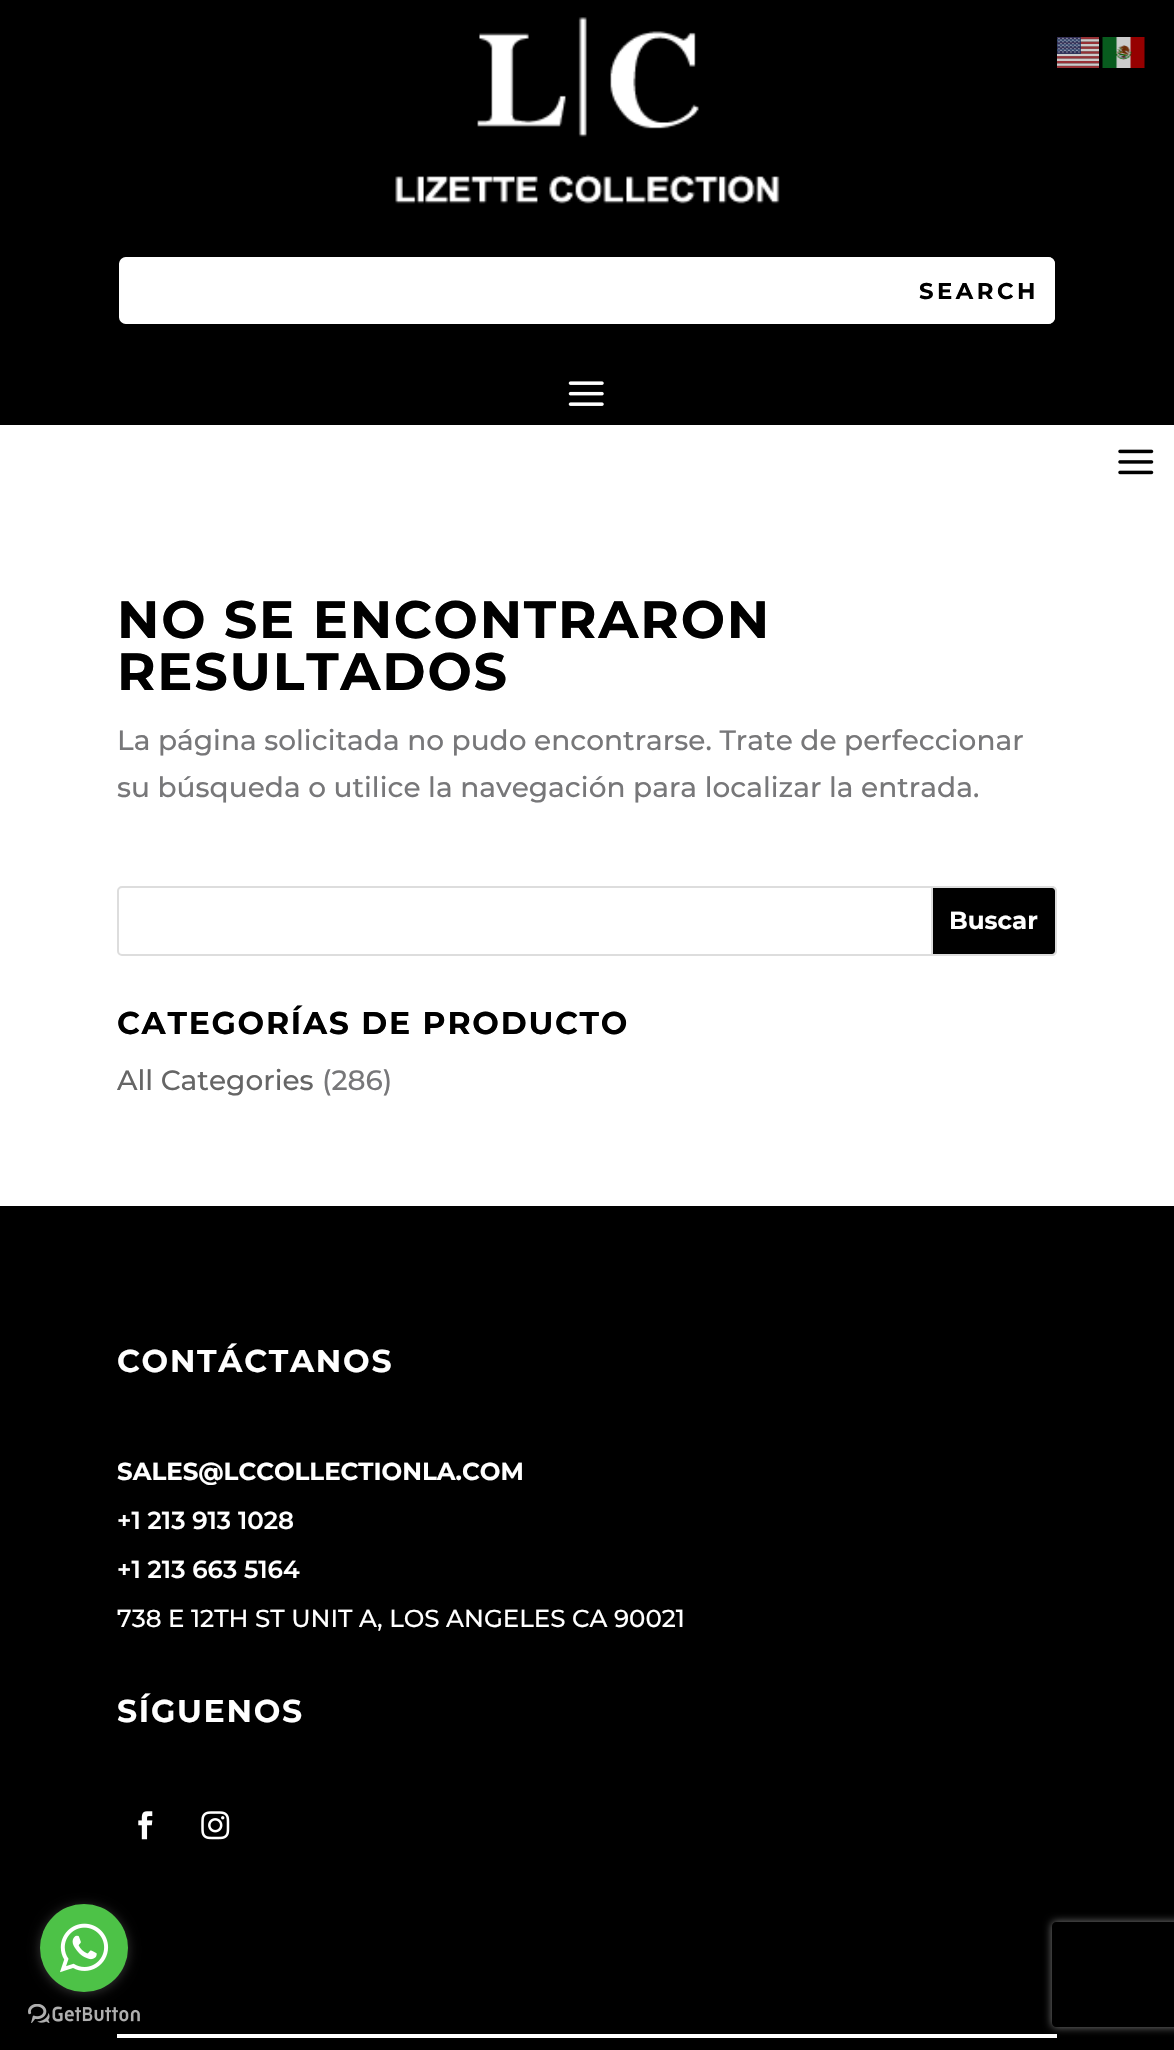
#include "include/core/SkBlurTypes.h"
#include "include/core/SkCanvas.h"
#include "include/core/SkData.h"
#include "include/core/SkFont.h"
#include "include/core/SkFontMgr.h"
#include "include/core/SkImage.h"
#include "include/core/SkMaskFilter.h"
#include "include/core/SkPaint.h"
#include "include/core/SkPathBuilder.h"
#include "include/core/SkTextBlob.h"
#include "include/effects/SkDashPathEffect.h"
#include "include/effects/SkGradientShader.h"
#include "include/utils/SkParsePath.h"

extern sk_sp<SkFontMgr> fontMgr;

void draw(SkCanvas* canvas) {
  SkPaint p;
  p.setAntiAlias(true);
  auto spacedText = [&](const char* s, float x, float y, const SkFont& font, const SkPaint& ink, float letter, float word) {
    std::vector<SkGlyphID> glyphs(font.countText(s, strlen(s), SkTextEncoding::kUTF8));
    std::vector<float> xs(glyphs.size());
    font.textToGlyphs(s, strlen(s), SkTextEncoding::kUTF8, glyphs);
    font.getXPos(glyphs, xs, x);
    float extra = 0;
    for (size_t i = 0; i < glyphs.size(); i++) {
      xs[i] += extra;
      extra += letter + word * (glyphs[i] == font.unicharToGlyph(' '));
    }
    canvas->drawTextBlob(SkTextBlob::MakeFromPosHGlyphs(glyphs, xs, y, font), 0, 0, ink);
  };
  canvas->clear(SK_ColorWHITE);
  p.setColor(SK_ColorBLACK);
  canvas->drawRect(SkRect::MakeLTRB(0, 0, 1174, 425), p);
  canvas->drawImageRect(SkImages::DeferredFromEncodedData(SkData::MakeFromFileName("images/1.png")), SkRect::MakeLTRB(1057, 37, 1099, 68), SkSamplingOptions());
  canvas->drawImageRect(SkImages::DeferredFromEncodedData(SkData::MakeFromFileName("images/2.png")), SkRect::MakeLTRB(1102, 37, 1145, 68), SkSamplingOptions());
  canvas->drawImageRect(SkImages::DeferredFromEncodedData(SkData::MakeFromFileName("images/3.png")), SkRect::MakeLTRB(395, 17, 780, 204), SkSamplingOptions());
  p.setColor(SK_ColorWHITE);
  canvas->drawRoundRect(SkRect::MakeLTRB(119, 257, 1055, 324), 7, 7, p);
  canvas->drawRoundRect(SkRect::MakeLTRB(119, 257, 903, 324), 9, 9, p);
  canvas->drawPath(SkPathBuilder().moveTo(903, 257).lineTo(1048, 257).cubicTo(1052, 257, 1055, 260, 1055, 264).lineTo(1055, 317).cubicTo(1055, 321, 1052, 324, 1048, 324).lineTo(903, 324).close().detach(), p);
  canvas->drawImageRect(SkImages::DeferredFromEncodedData(SkData::MakeFromFileName("images/4.png")), SkRect::MakeLTRB(568, 381, 604, 406), SkSamplingOptions());
  canvas->drawImageRect(SkImages::DeferredFromEncodedData(SkData::MakeFromFileName("images/5.png")), SkRect::MakeLTRB(1118, 449, 1154, 475), SkSamplingOptions());
  p.setStyle(SkPaint::kStroke_Style);
  p.setStrokeWidth(2);
  p.setColor(SkColorSetRGB(221, 221, 221));
  canvas->drawRoundRect(SkRect::MakeLTRB(118, 887, 1056, 955), 4, 4, p);
  p.setStyle(SkPaint::kFill_Style);
  p.setColor(SK_ColorBLACK);
  canvas->drawPath(SkPathBuilder().moveTo(932, 887).lineTo(1052, 887).cubicTo(1054, 887, 1056, 889, 1056, 891).lineTo(1056, 951).cubicTo(1056, 953, 1054, 955, 1052, 955).lineTo(932, 955).close().detach(), p);
  p.setStyle(SkPaint::kStroke_Style);
  p.setColor(SkColorSetRGB(221, 221, 221));
  canvas->drawPath(SkPathBuilder().moveTo(932, 887).lineTo(1052, 887).cubicTo(1054, 887, 1056, 889, 1056, 891).lineTo(1056, 951).cubicTo(1056, 953, 1054, 955, 1052, 955).lineTo(932, 955).close().detach(), p);
  p.setStyle(SkPaint::kFill_Style);
  p.setColor(SK_ColorBLACK);
  canvas->drawRect(SkRect::MakeLTRB(0, 1206, 1174, 2050), p);
  canvas->drawImageRect(SkImages::DeferredFromEncodedData(SkData::MakeFromFileName("images/6.png")), SkRect::MakeLTRB(138, 1811, 153, 1840), SkSamplingOptions());
  canvas->drawImageRect(SkImages::DeferredFromEncodedData(SkData::MakeFromFileName("images/7.png")), SkRect::MakeLTRB(201, 1811, 230, 1840), SkSamplingOptions());
  p.setColor(SK_ColorWHITE);
  canvas->drawRect(SkRect::MakeLTRB(117, 2034, 1057, 2038), p);
  canvas->drawImageRect(SkImages::DeferredFromEncodedData(SkData::MakeFromFileName("images/9.png")), SkRect::MakeLTRB(28, 2004, 140, 2023), SkSamplingOptions());
  p.setColor(SkColorSetARGB(102, 136, 136, 136));
  p.setMaskFilter(SkMaskFilter::MakeBlur(kNormal_SkBlurStyle, 6));
  canvas->drawRoundRect(SkRect::MakeLTRB(40, 1906, 128, 1993), 43.5f, 43.5f, p);
  p.setMaskFilter(nullptr);
  p.setColor(SkColorSetRGB(77, 194, 71));
  canvas->drawCircle(84, 1948, 44, p);
  canvas->drawImageRect(SkImages::DeferredFromEncodedData(SkData::MakeFromFileName("images/8.png")), SkRect::MakeLTRB(60, 1923, 109, 1973), SkSamplingOptions());
  canvas->save();
  canvas->clipPath(SkPathBuilder(SkPathFillType::kEvenOdd).moveTo(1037, 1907).lineTo(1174, 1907).lineTo(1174, 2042).lineTo(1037, 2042).close().moveTo(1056, 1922).lineTo(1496, 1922).cubicTo(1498, 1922, 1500, 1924, 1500, 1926).lineTo(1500, 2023).cubicTo(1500, 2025, 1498, 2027, 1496, 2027).lineTo(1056, 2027).cubicTo(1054, 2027, 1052, 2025, 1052, 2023).lineTo(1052, 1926).cubicTo(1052, 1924, 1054, 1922, 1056, 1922).close().detach(), true);
  p.setColor(SkColorSetRGB(128, 128, 128));
  p.setMaskFilter(SkMaskFilter::MakeBlur(kNormal_SkBlurStyle, 4.5f));
  canvas->drawRoundRect(SkRect::MakeLTRB(1052, 1922, 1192, 2027), 4, 4, p);
  p.setMaskFilter(nullptr);
  canvas->restore();
  SkFont font1(fontMgr->matchFamilyStyle("Montserrat", SkFontStyle(100, SkFontStyle::kNormal_Width, SkFontStyle::kUpright_Slant)), 22.75f);
  font1.setSubpixel(true);
  p.setColor(SK_ColorBLACK);
  spacedText("SEARCH", 919, 299, font1, p, 3.5f, 0);
  SkFont font2(fontMgr->matchFamilyStyle("Montserrat", SkFontStyle(100, SkFontStyle::kNormal_Width, SkFontStyle::kUpright_Slant)), 52.5f);
  font2.setSubpixel(true);
  spacedText("NO SE ENCONTRARON", 117, 638, font2, p, 1.75f, 0);
  spacedText("RESULTADOS", 117, 690, font2, p, 1.75f, 0);
  SkFont font3(fontMgr->matchFamilyStyle("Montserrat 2", SkFontStyle(100, SkFontStyle::kNormal_Width, SkFontStyle::kUpright_Slant)), 28);
  font3.setSubpixel(true);
  p.setColor(SkColorSetRGB(119, 119, 121));
  canvas->drawString("La página solicitada no pudo encontrarse. Trate de perfeccionar", 117, 750, font3, p);
  canvas->drawString("su búsqueda o utilice la navegación para localizar la entrada.", 117, 797, font3, p);
  SkFont font4(fontMgr->matchFamilyStyle("Montserrat", SkFontStyle(100, SkFontStyle::kNormal_Width, SkFontStyle::kUpright_Slant)), 24.5f);
  font4.setSubpixel(true);
  p.setColor(SK_ColorWHITE);
  canvas->drawString("Buscar", 949, 929, font4, p);
  SkFont font5(fontMgr->matchFamilyStyle("Montserrat", SkFontStyle(100, SkFontStyle::kNormal_Width, SkFontStyle::kUpright_Slant)), 31.5f);
  font5.setSubpixel(true);
  p.setColor(SK_ColorBLACK);
  spacedText("CATEGORÍAS DE PRODUCTO", 117, 1034, font5, p, 1.75f, 0);
  p.setColor(SkColorSetRGB(102, 102, 102));
  canvas->drawString("All Categories", 117, 1090, font3, p);
  p.setColor(SkColorSetRGB(119, 119, 121));
  canvas->drawString("(286)", 322, 1090, font3, p);
  p.setColor(SK_ColorWHITE);
  spacedText("CONTÁCTANOS", 117, 1372, font5, p, 1.75f, 0);
  canvas->drawString("SALES@LCCOLLECTIONLA.COM", 117, 1480, font4, p);
  SkFont font6(fontMgr->matchFamilyStyle("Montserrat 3", SkFontStyle(100, SkFontStyle::kNormal_Width, SkFontStyle::kUpright_Slant)), 24.5f);
  font6.setSubpixel(true);
  canvas->drawString("+1 213 913 1028", 117, 1529, font6, p);
  canvas->drawString("+1 213 663 5164", 117, 1578, font6, p);
  SkFont font7(fontMgr->matchFamilyStyle("Montserrat 2", SkFontStyle(100, SkFontStyle::kNormal_Width, SkFontStyle::kUpright_Slant)), 24.5f);
  font7.setSubpixel(true);
  canvas->drawString("738 E 12TH ST UNIT A, LOS ANGELES CA 90021", 117, 1627, font7, p);
  spacedText("SÍGUENOS", 117, 1722, font5, p, 1.75f, 0);
}
